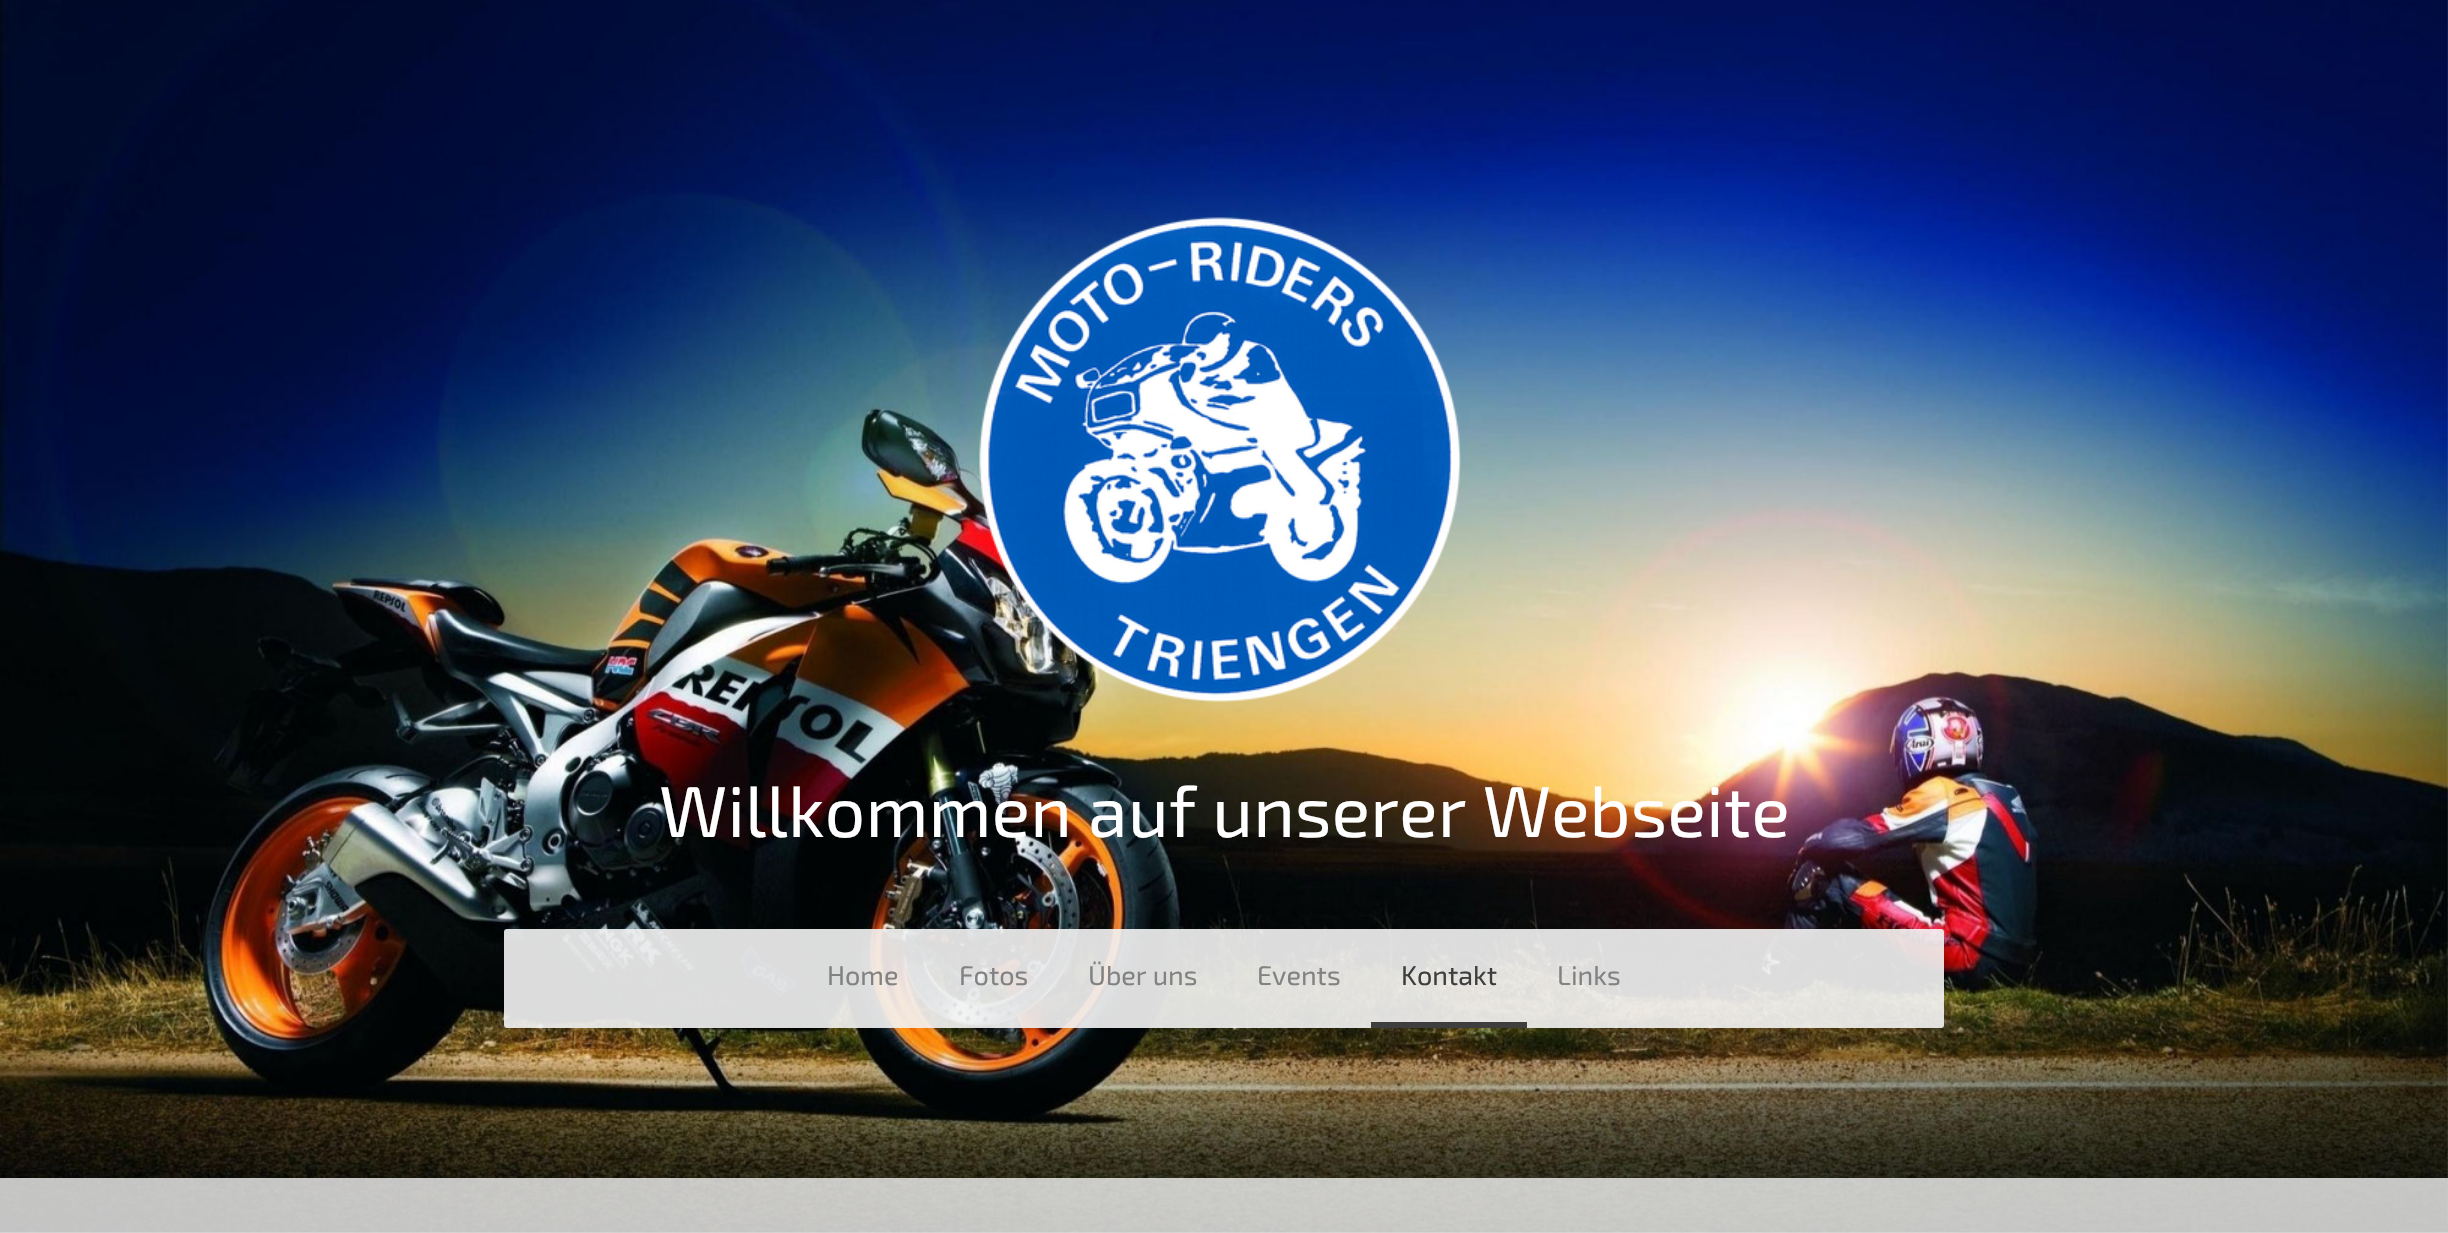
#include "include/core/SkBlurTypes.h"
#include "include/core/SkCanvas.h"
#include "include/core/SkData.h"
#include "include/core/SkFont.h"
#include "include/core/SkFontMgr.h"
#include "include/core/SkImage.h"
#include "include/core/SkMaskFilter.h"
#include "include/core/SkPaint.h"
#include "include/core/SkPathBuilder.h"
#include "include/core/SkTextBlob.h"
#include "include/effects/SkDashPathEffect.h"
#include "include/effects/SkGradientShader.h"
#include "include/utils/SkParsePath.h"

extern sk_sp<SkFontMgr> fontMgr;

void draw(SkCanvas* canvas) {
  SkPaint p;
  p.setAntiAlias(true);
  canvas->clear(SK_ColorWHITE);
  canvas->drawImageRect(SkImages::DeferredFromEncodedData(SkData::MakeFromFileName("images/1.png")), SkRect::MakeLTRB(0, 0, 2448, 1233), SkSamplingOptions());
  canvas->drawImageRect(SkImages::DeferredFromEncodedData(SkData::MakeFromFileName("images/2.png")), SkRect::MakeLTRB(979, 217, 1461, 703), SkSamplingOptions());
  p.setColor(SkColorSetARGB(230, 243, 243, 243));
  canvas->drawRoundRect(SkRect::MakeLTRB(504, 929, 1944, 1028), 3, 3, p);
  p.setColor(SkColorSetRGB(62, 62, 62));
  canvas->drawRect(SkRect::MakeLTRB(1371, 1022, 1527, 1028), p);
  p.setColor(SkColorSetARGB(204, 243, 243, 243));
  canvas->drawRect(SkRect::MakeLTRB(0, 1178, 2448, 1233), p);
  SkFont font1(fontMgr->matchFamilyStyle("Exo 2", SkFontStyle::Normal()), 72);
  font1.setSubpixel(true);
  p.setColor(SK_ColorWHITE);
  canvas->drawString("Willkommen auf unserer Webseite", 659, 837, font1, p);
  SkFont font2(fontMgr->matchFamilyStyle("Exo 2", SkFontStyle::Normal()), 27);
  font2.setSubpixel(true);
  p.setColor(SkColorSetRGB(130, 130, 130));
  canvas->drawString("Home", 827, 985, font2, p);
  canvas->drawString("Fotos", 959, 985, font2, p);
  canvas->drawString("Über uns", 1088, 985, font2, p);
  canvas->drawString("Events", 1257, 985, font2, p);
  p.setColor(SkColorSetRGB(62, 62, 62));
  canvas->drawString("Kontakt", 1401, 985, font2, p);
  p.setColor(SkColorSetRGB(130, 130, 130));
  canvas->drawString("Links", 1557, 985, font2, p);
}
